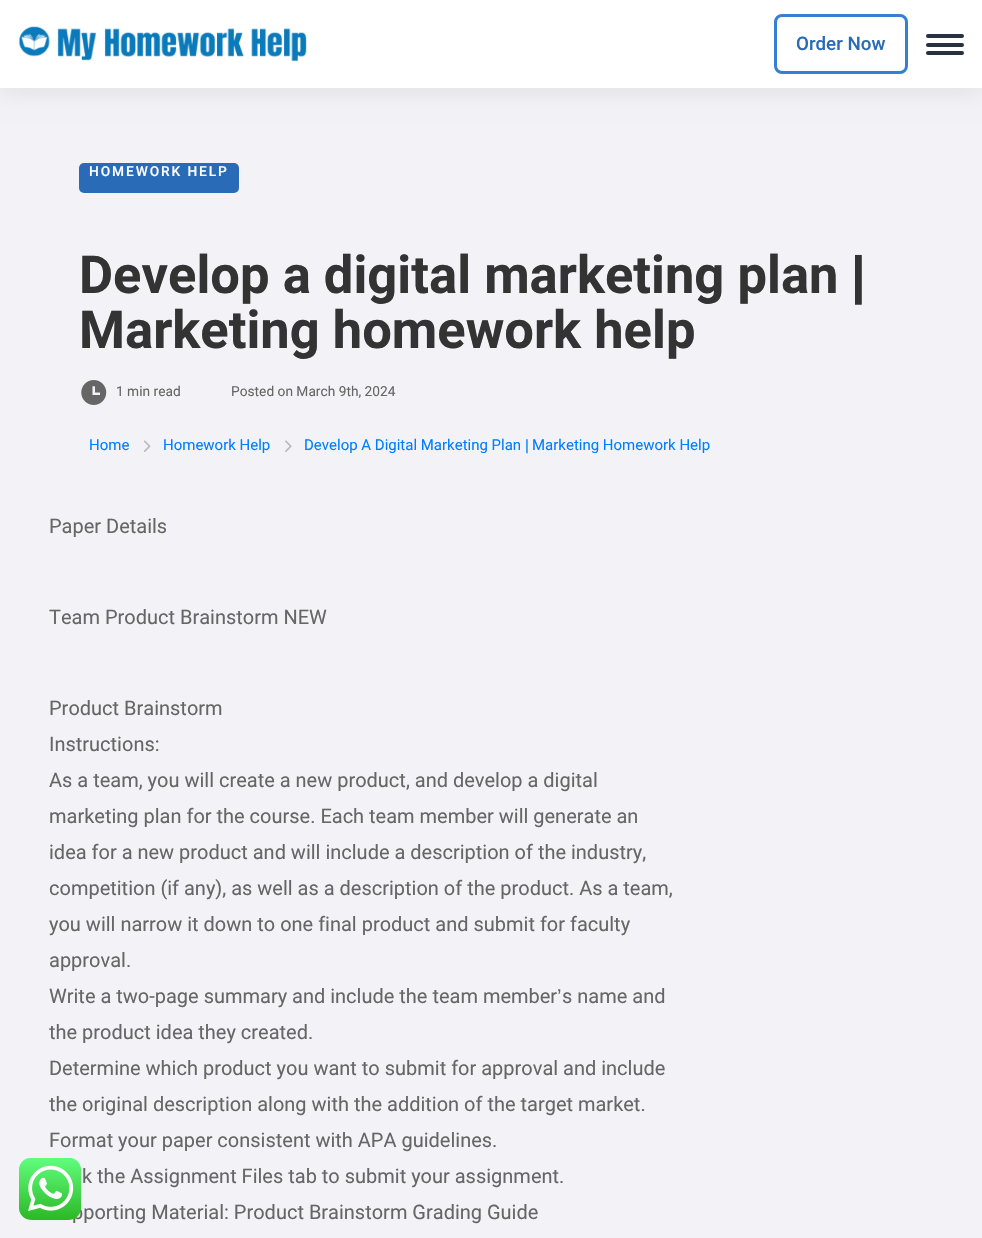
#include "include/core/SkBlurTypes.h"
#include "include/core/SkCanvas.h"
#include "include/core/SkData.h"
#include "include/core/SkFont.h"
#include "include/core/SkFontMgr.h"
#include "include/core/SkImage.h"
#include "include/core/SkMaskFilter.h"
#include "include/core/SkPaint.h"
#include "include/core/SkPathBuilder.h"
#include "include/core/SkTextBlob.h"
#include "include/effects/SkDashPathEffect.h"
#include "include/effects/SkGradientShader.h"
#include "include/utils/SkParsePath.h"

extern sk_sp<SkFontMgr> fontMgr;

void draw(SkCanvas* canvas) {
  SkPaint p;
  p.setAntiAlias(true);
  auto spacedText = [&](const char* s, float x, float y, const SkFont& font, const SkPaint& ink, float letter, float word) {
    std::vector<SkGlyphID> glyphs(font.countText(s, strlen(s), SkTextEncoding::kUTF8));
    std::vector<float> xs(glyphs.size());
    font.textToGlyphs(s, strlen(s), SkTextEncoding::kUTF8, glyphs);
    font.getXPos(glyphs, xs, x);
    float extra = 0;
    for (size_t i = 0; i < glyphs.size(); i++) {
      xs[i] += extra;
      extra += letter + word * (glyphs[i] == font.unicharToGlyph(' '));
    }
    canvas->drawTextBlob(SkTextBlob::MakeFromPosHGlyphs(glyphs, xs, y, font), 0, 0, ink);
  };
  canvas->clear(SkColorSetRGB(243, 243, 247));
  p.setColor(SkColorSetARGB(26, 0, 0, 0));
  p.setMaskFilter(SkMaskFilter::MakeBlur(kNormal_SkBlurStyle, 12.5f));
  canvas->drawRect(SkRect::MakeLTRB(0, 0, 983, 88), p);
  p.setMaskFilter(nullptr);
  p.setColor(SK_ColorWHITE);
  canvas->drawRect(SkRect::MakeLTRB(0, 0, 982, 88), p);
  canvas->drawImageRect(SkImages::DeferredFromEncodedData(SkData::MakeFromFileName("images/1.png")), SkRect::MakeLTRB(19, 26, 307, 62), SkSamplingOptions());
  p.setStyle(SkPaint::kStroke_Style);
  p.setStrokeWidth(3);
  p.setColor(SkColorSetRGB(54, 127, 211));
  canvas->drawRoundRect(SkRect::MakeLTRB(775.5f, 15.5f, 906.5f, 72.5f), 6.5f, 6.5f, p);
  p.setStyle(SkPaint::kFill_Style);
  p.setColor(SkColorSetRGB(39, 49, 66));
  canvas->drawRoundRect(SkRect::MakeLTRB(926, 43, 964, 47), 2, 2, p);
  canvas->drawRoundRect(SkRect::MakeLTRB(926, 34, 964, 38), 2, 2, p);
  canvas->drawRoundRect(SkRect::MakeLTRB(926, 51, 964, 55), 2, 2, p);
  p.setColor(SkColorSetRGB(41, 107, 183));
  canvas->drawRoundRect(SkRect::MakeLTRB(79, 163, 239, 193), 5, 5, p);
  canvas->drawImageRect(SkImages::DeferredFromEncodedData(SkData::MakeFromFileName("images/2.png")), SkRect::MakeLTRB(81, 380, 107, 405), SkSamplingOptions());
  canvas->drawImageRect(SkImages::DeferredFromEncodedData(SkData::MakeFromFileName("images/3.png")), SkRect::MakeLTRB(143, 440, 151, 452), SkSamplingOptions());
  canvas->drawImageRect(SkImages::DeferredFromEncodedData(SkData::MakeFromFileName("images/4.png")), SkRect::MakeLTRB(285, 440, 292, 452), SkSamplingOptions());
  SkFont font1(fontMgr->matchFamilyStyle("Roboto", SkFontStyle(500, SkFontStyle::kNormal_Width, SkFontStyle::kUpright_Slant)), 18.75f);
  font1.setSubpixel(true);
  canvas->drawString("Order Now", 796, 50, font1, p);
  SkFont font2(fontMgr->matchFamilyStyle("Roboto", SkFontStyle(500, SkFontStyle::kNormal_Width, SkFontStyle::kUpright_Slant)), 13.75f);
  font2.setSubpixel(true);
  p.setColor(SK_ColorWHITE);
  spacedText("HOMEWORK HELP", 89, 176, font2, p, 1.9f, 0);
  SkFont font3(fontMgr->matchFamilyStyle("Roboto", SkFontStyle::Bold()), 52.5f);
  font3.setSubpixel(true);
  p.setColor(SkColorSetRGB(51, 51, 51));
  canvas->drawString("Develop a digital marketing plan", 79, 293, font3, p);
  SkFont font4(fontMgr->matchFamilyStyle("Liberation Sans", SkFontStyle::Bold()), 52.5f);
  font4.setSubpixel(true);
  canvas->drawString("|", 851, 293, font4, p);
  canvas->drawString("Marketing homework help", 79, 348, font3, p);
  SkFont font5(fontMgr->matchFamilyStyle("Roboto", SkFontStyle::Normal()), 13.75f);
  font5.setSubpixel(true);
  p.setColor(SkColorSetRGB(102, 102, 102));
  canvas->drawString("1 min read", 116, 396, font5, p);
  canvas->drawString("Posted on March 9th, 2024", 231, 396, font5, p);
  SkFont font6(fontMgr->matchFamilyStyle("Roboto", SkFontStyle::Normal()), 15);
  font6.setSubpixel(true);
  p.setColor(SkColorSetRGB(0, 126, 255));
  canvas->drawString("Home", 89, 450, font6, p);
  canvas->drawString("Homework Help", 163, 450, font6, p);
  canvas->drawString("Develop A Digital Marketing Plan", 304, 450, font6, p);
  SkFont font7(fontMgr->matchFamilyStyle("Liberation Sans", SkFontStyle::Normal()), 15);
  font7.setSubpixel(true);
  canvas->drawString("|", 525, 450, font7, p);
  canvas->drawString("Marketing Homework Help", 532, 450, font6, p);
  SkFont font8(fontMgr->matchFamilyStyle("Roboto", SkFontStyle::Normal()), 20);
  font8.setSubpixel(true);
  p.setColor(SkColorSetRGB(102, 102, 102));
  canvas->drawString("Paper Details", 49, 533, font8, p);
  canvas->drawString("Team Product Brainstorm NEW", 49, 624, font8, p);
  canvas->drawString("Product Brainstorm", 49, 715, font8, p);
  canvas->drawString("Instructions:", 49, 751, font8, p);
  canvas->drawString("As a team, you will create a new product, and develop a digital", 49, 787, font8, p);
  canvas->drawString("marketing plan for the course. Each team member will generate an", 49, 823, font8, p);
  canvas->drawString("idea for a new product and will include a description of the industry,", 49, 859, font8, p);
  canvas->drawString("competition (if any), as well as a description of the product. As a team,", 49, 895, font8, p);
  canvas->drawString("you will narrow it down to one final product and submit for faculty", 49, 931, font8, p);
  canvas->drawString("approval.", 49, 967, font8, p);
  canvas->drawString("Write a two-page summary and include the team member", 49, 1003, font8, p);
  SkFont font9(fontMgr->matchFamilyStyle("Liberation Sans", SkFontStyle::Normal()), 20);
  font9.setSubpixel(true);
  canvas->drawString("’", 557, 1003, font9, p);
  canvas->drawString("s name and", 562, 1003, font8, p);
  canvas->drawString("the product idea they created.", 49, 1039, font8, p);
  canvas->drawString("Determine which product you want to submit for approval and include", 49, 1075, font8, p);
  canvas->drawString("the original description along with the addition of the target market.", 49, 1111, font8, p);
  canvas->drawString("Format your paper consistent with APA guidelines.", 49, 1147, font8, p);
  canvas->drawString("k the Assignment Files tab to submit your assignment.", 82, 1183, font8, p);
  canvas->drawString("pporting Material: Product Brainstorm Grading Guide", 72, 1219, font8, p);
  canvas->drawImageRect(SkImages::DeferredFromEncodedData(SkData::MakeFromFileName("images/5.png")), SkRect::MakeLTRB(19, 1158, 81, 1220), SkSamplingOptions());
}
